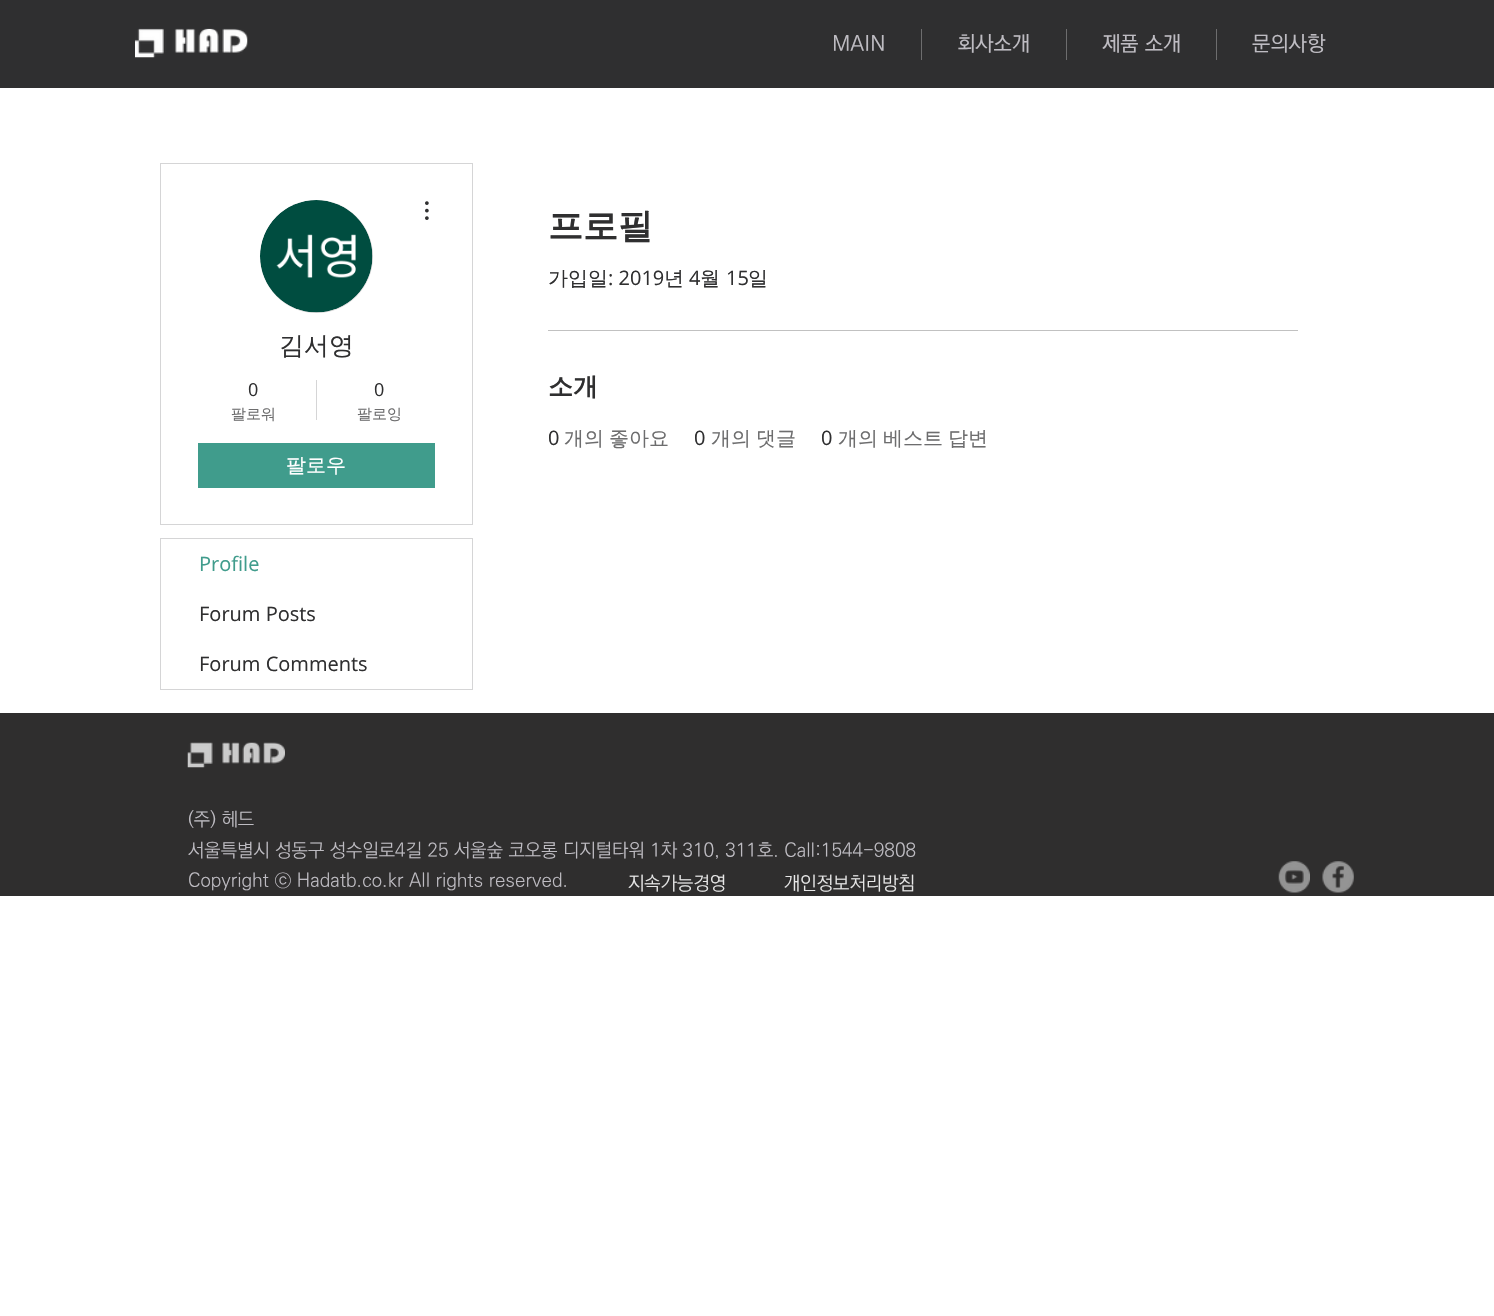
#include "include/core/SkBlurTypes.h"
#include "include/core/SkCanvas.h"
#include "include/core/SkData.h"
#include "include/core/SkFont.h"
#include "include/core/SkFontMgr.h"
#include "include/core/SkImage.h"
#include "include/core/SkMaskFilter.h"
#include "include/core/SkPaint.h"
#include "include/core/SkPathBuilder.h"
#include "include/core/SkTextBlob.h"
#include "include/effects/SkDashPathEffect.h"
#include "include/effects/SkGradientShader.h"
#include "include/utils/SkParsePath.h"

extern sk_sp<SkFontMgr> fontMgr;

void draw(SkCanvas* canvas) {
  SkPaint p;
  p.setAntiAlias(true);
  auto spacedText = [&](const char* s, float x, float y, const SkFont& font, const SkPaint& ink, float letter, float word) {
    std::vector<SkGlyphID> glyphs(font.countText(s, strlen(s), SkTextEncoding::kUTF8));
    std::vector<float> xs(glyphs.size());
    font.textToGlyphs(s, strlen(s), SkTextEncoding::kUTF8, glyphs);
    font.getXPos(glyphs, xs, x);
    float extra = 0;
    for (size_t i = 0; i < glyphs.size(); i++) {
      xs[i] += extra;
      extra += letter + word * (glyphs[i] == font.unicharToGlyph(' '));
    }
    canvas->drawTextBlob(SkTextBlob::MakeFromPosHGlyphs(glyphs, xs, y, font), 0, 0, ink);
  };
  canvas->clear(SK_ColorWHITE);
  p.setColor(SkColorSetRGB(47, 47, 48));
  canvas->drawRect(SkRect::MakeLTRB(0, 0, 1494, 88), p);
  canvas->drawImageRect(SkImages::DeferredFromEncodedData(SkData::MakeFromFileName("images/1.png")), SkRect::MakeLTRB(135, 28, 248, 58), SkSamplingOptions());
  p.setColor(SkColorSetRGB(109, 109, 110));
  canvas->drawRect(SkRect::MakeLTRB(921, 29, 922, 60), p);
  canvas->drawRect(SkRect::MakeLTRB(1066, 29, 1067, 60), p);
  canvas->drawRect(SkRect::MakeLTRB(1216, 29, 1217, 60), p);
  p.setStyle(SkPaint::kStroke_Style);
  p.setStrokeWidth(1);
  p.setColor(SkColorSetRGB(213, 213, 214));
  canvas->drawRect(SkRect::MakeLTRB(160.5f, 163.5f, 472.5f, 524.5f), p);
  p.setStyle(SkPaint::kFill_Style);
  p.setColor(SkColorSetRGB(216, 216, 216));
  canvas->drawCircle(316.5f, 256.5f, 56.5f, p);
  canvas->drawImageRect(SkImages::DeferredFromEncodedData(SkData::MakeFromFileName("images/2.png")), SkRect::MakeLTRB(260, 200, 373, 313), SkSamplingOptions());
  canvas->drawImageRect(SkImages::DeferredFromEncodedData(SkData::MakeFromFileName("images/3.png")), SkRect::MakeLTRB(425, 201, 429, 220), SkSamplingOptions());
  p.setColor(SkColorSetRGB(213, 213, 214));
  canvas->drawRect(SkRect::MakeLTRB(316, 380, 317, 420), p);
  p.setColor(SkColorSetRGB(64, 156, 140));
  canvas->drawRect(SkRect::MakeLTRB(198, 443, 435, 488), p);
  p.setStyle(SkPaint::kStroke_Style);
  p.setColor(SkColorSetRGB(213, 213, 214));
  canvas->drawRect(SkRect::MakeLTRB(160.5f, 538.5f, 472.5f, 689.5f), p);
  p.setStyle(SkPaint::kFill_Style);
  p.setColor(SkColorSetRGB(193, 193, 193));
  canvas->drawRect(SkRect::MakeLTRB(548, 330, 1298, 331), p);
  p.setColor(SkColorSetRGB(47, 46, 46));
  canvas->drawRect(SkRect::MakeLTRB(0, 713, 1494, 896), p);
  canvas->drawImageRect(SkImages::DeferredFromEncodedData(SkData::MakeFromFileName("images/4.png")), SkRect::MakeLTRB(187, 742, 285, 768), SkSamplingOptions());
  canvas->drawImageRect(SkImages::DeferredFromEncodedData(SkData::MakeFromFileName("images/5.png")), SkRect::MakeLTRB(1278, 861, 1310, 893), SkSamplingOptions());
  canvas->drawImageRect(SkImages::DeferredFromEncodedData(SkData::MakeFromFileName("images/6.png")), SkRect::MakeLTRB(1322, 861, 1354, 893), SkSamplingOptions());
  SkFont font1(fontMgr->matchFamilyStyle("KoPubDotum", SkFontStyle(500, SkFontStyle::kNormal_Width, SkFontStyle::kUpright_Slant)), 21);
  font1.setSubpixel(true);
  p.setColor(SkColorSetRGB(190, 188, 194));
  canvas->drawString("MAIN", 832, 50, font1, p);
  canvas->drawString("회사소개", 957, 50, font1, p);
  canvas->drawString("제품 소개", 1102, 50, font1, p);
  canvas->drawString("문의사항", 1252, 50, font1, p);
  SkFont font2(fontMgr->matchFamilyStyle("WenQuanYi Zen Hei", SkFontStyle(500, SkFontStyle::kNormal_Width, SkFontStyle::kUpright_Slant)), 25);
  font2.setSubpixel(true);
  p.setColor(SkColorSetRGB(47, 47, 48));
  canvas->drawString("김서영", 279, 354, font2, p);
  SkFont font3(fontMgr->matchFamilyStyle("Open Sans", SkFontStyle::Normal()), 18);
  font3.setSubpixel(true);
  canvas->drawString("0", 248, 396, font3, p);
  SkFont font4(fontMgr->matchFamilyStyle("WenQuanYi Zen Hei", SkFontStyle(500, SkFontStyle::kNormal_Width, SkFontStyle::kUpright_Slant)), 15);
  font4.setSubpixel(true);
  p.setColor(SkColorSetRGB(109, 109, 110));
  canvas->drawString("팔로워", 231, 419, font4, p);
  p.setColor(SkColorSetRGB(47, 47, 48));
  canvas->drawString("0", 374, 396, font3, p);
  p.setColor(SkColorSetRGB(109, 109, 110));
  canvas->drawString("팔로잉", 357, 419, font4, p);
  SkFont font5(fontMgr->matchFamilyStyle("WenQuanYi Zen Hei", SkFontStyle(500, SkFontStyle::kNormal_Width, SkFontStyle::kUpright_Slant)), 20);
  font5.setSubpixel(true);
  p.setColor(SK_ColorWHITE);
  canvas->drawString("팔로우", 286, 472, font5, p);
  SkFont font6(fontMgr->matchFamilyStyle("Open Sans", SkFontStyle::Normal()), 20);
  font6.setSubpixel(true);
  p.setColor(SkColorSetRGB(64, 156, 140));
  canvas->drawString("Profile", 199, 571, font6, p);
  p.setColor(SkColorSetRGB(47, 47, 48));
  canvas->drawString("Forum Posts", 199, 621, font6, p);
  canvas->drawString("Forum Comments", 199, 671, font6, p);
  SkFont font7(fontMgr->matchFamilyStyle("WenQuanYi Zen Hei", SkFontStyle::Bold()), 35);
  font7.setSubpixel(true);
  canvas->drawString("프로필", 548, 238, font7, p);
  canvas->drawString("가입일", 548, 285, font5, p);
  canvas->drawString(": 2019", 608, 285, font6, p);
  canvas->drawString("년", 664, 285, font5, p);
  canvas->drawString("4", 689, 285, font6, p);
  canvas->drawString("월", 700, 285, font5, p);
  canvas->drawString("15", 726, 285, font6, p);
  canvas->drawString("일", 748, 285, font5, p);
  SkFont font8(fontMgr->matchFamilyStyle("WenQuanYi Zen Hei", SkFontStyle::Bold()), 25);
  font8.setSubpixel(true);
  canvas->drawString("소개", 548, 395, font8, p);
  canvas->drawString("0", 548, 445, font6, p);
  p.setColor(SkColorSetRGB(109, 109, 110));
  spacedText("개의 좋아요", 564, 445, font5, p, 0, -1);
  p.setColor(SkColorSetRGB(47, 47, 48));
  canvas->drawString("0", 694, 445, font6, p);
  p.setColor(SkColorSetRGB(109, 109, 110));
  spacedText("개의 댓글", 711, 445, font5, p, 0, -1);
  p.setColor(SkColorSetRGB(47, 47, 48));
  canvas->drawString("0", 821, 445, font6, p);
  p.setColor(SkColorSetRGB(109, 109, 110));
  spacedText("개의 베스트 답변", 838, 445, font5, p, 0, -1);
  SkFont font9(fontMgr->matchFamilyStyle("KoPubDotum", SkFontStyle(300, SkFontStyle::kNormal_Width, SkFontStyle::kUpright_Slant)), 18.75f);
  font9.setSubpixel(true);
  p.setColor(SkColorSetRGB(190, 188, 194));
  canvas->drawString("(주) 헤드", 188, 825, font9, p);
  canvas->drawString("서울특별시 성동구 성수일로4길 25 서울숲 코오롱 디지털타워 1차 310, 311호. Call:1544-9808", 188, 856, font9, p);
  canvas->drawString("Copyright ⓒ Hadatb.co.kr All rights reserved.", 188, 886, font9, p);
  p.setColor(SkColorSetRGB(232, 232, 232));
  canvas->drawString("지속가능경영", 628, 889, font9, p);
  canvas->drawString("개인정보처리방침", 784, 889, font9, p);
}
